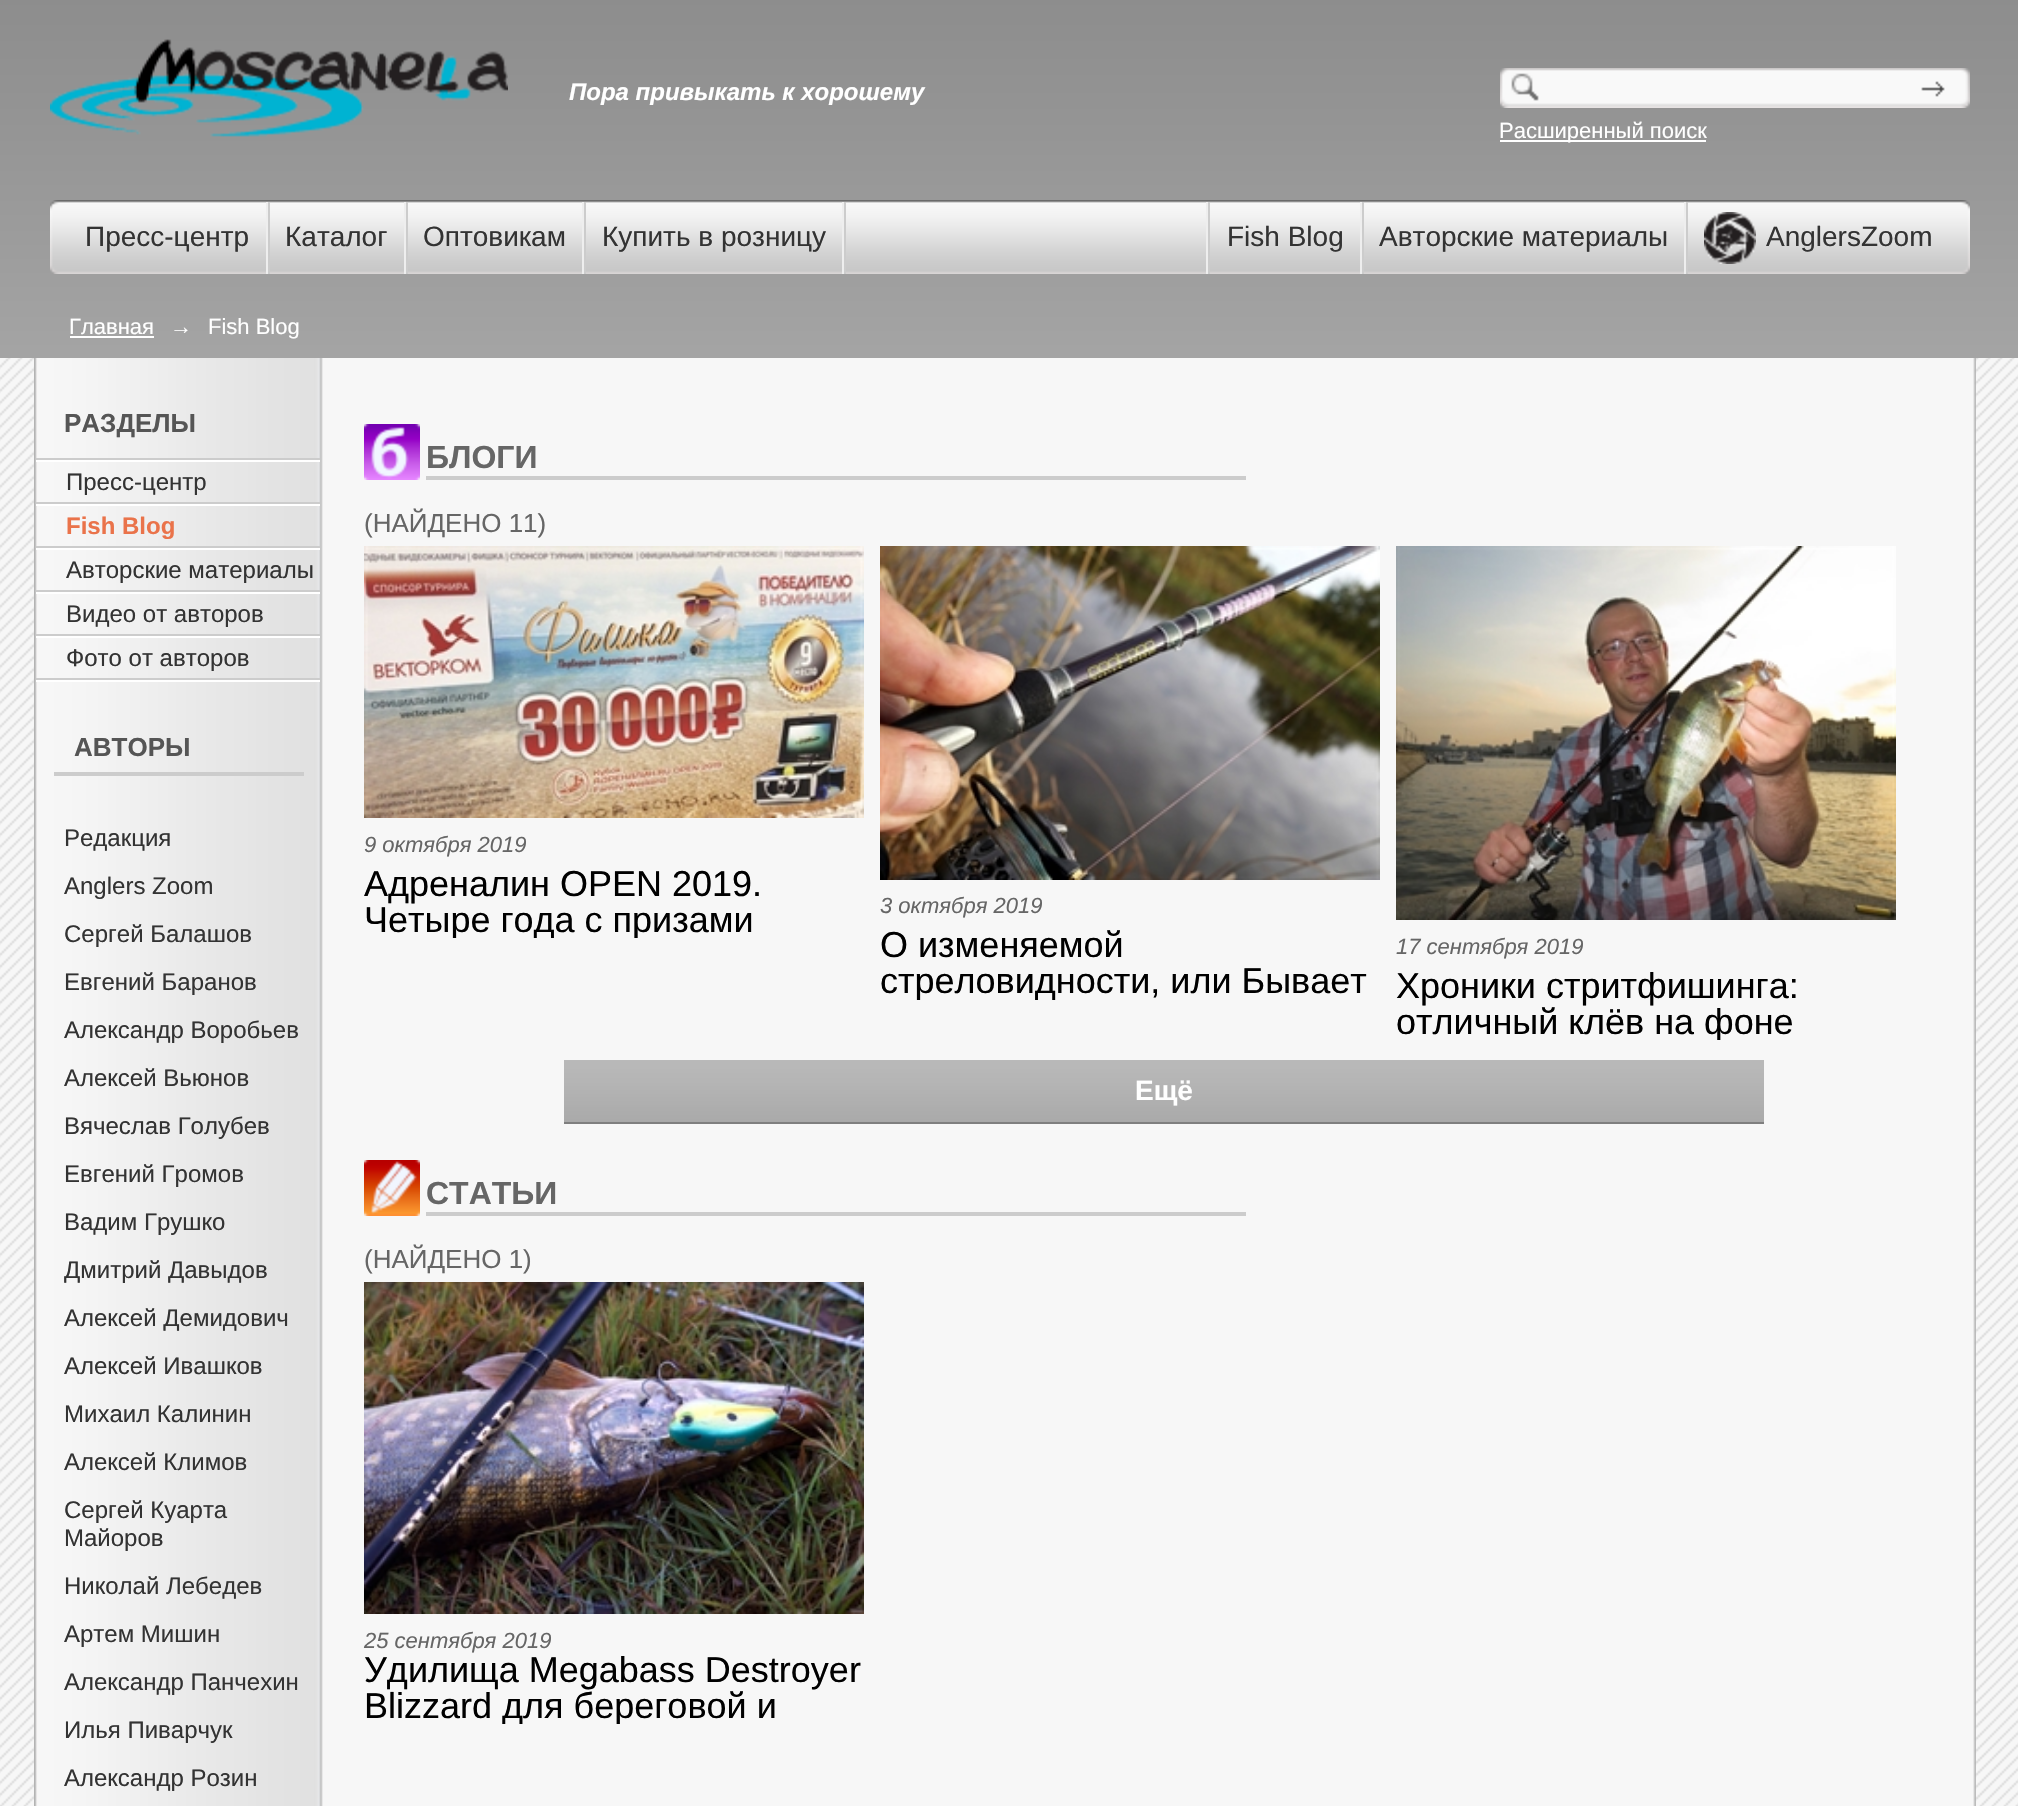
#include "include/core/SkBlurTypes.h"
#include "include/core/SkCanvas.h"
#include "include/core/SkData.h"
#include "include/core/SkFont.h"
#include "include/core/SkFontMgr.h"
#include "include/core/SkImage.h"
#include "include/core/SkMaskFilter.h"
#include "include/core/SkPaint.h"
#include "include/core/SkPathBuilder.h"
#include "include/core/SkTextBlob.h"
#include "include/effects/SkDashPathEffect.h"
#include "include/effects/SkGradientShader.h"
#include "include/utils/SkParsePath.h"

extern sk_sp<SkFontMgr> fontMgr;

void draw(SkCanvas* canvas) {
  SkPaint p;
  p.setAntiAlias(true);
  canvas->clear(SK_ColorWHITE);
  canvas->drawImageRect(SkImages::DeferredFromEncodedData(SkData::MakeFromFileName("images/1.png")), SkRect::MakeLTRB(0, 358, 2018, 1806), SkSamplingOptions());
  canvas->drawImageRect(SkImages::DeferredFromEncodedData(SkData::MakeFromFileName("images/2.png")), SkRect::MakeLTRB(0, 0, 2018, 358), SkSamplingOptions());
  canvas->drawImageRect(SkImages::DeferredFromEncodedData(SkData::MakeFromFileName("images/3.png")), SkRect::MakeLTRB(50, 39, 508, 137), SkSamplingOptions());
  canvas->drawImageRect(SkImages::DeferredFromEncodedData(SkData::MakeFromFileName("images/4.png")), SkRect::MakeLTRB(1500, 68, 1970, 108), SkSamplingOptions());
  p.setColor(SK_ColorWHITE);
  canvas->drawRect(SkRect::MakeLTRB(1500, 140, 1706, 142), p);
  canvas->drawImageRect(SkImages::DeferredFromEncodedData(SkData::MakeFromFileName("images/5.png")), SkRect::MakeLTRB(50, 200, 1970, 274), SkSamplingOptions());
  p.setColor(SkColorSetRGB(204, 204, 204));
  canvas->drawRect(SkRect::MakeLTRB(268, 202, 270, 274), p);
  p.setColor(SkColorSetRGB(238, 238, 238));
  canvas->drawRect(SkRect::MakeLTRB(266, 202, 268, 274), p);
  p.setColor(SkColorSetRGB(204, 204, 204));
  canvas->drawRect(SkRect::MakeLTRB(406, 202, 408, 274), p);
  p.setColor(SkColorSetRGB(238, 238, 238));
  canvas->drawRect(SkRect::MakeLTRB(404, 202, 406, 274), p);
  p.setColor(SkColorSetRGB(204, 204, 204));
  canvas->drawRect(SkRect::MakeLTRB(584, 202, 586, 274), p);
  p.setColor(SkColorSetRGB(238, 238, 238));
  canvas->drawRect(SkRect::MakeLTRB(582, 202, 584, 274), p);
  p.setColor(SkColorSetRGB(204, 204, 204));
  canvas->drawRect(SkRect::MakeLTRB(844, 202, 846, 274), p);
  p.setColor(SkColorSetRGB(238, 238, 238));
  canvas->drawRect(SkRect::MakeLTRB(842, 202, 844, 274), p);
  p.setColor(SkColorSetRGB(204, 204, 204));
  canvas->drawRect(SkRect::MakeLTRB(1208, 202, 1210, 274), p);
  p.setColor(SkColorSetRGB(238, 238, 238));
  canvas->drawRect(SkRect::MakeLTRB(1206, 202, 1208, 274), p);
  p.setColor(SkColorSetRGB(204, 204, 204));
  canvas->drawRect(SkRect::MakeLTRB(1362, 202, 1364, 274), p);
  p.setColor(SkColorSetRGB(238, 238, 238));
  canvas->drawRect(SkRect::MakeLTRB(1360, 202, 1362, 274), p);
  p.setColor(SkColorSetRGB(204, 204, 204));
  canvas->drawRect(SkRect::MakeLTRB(1686, 202, 1688, 274), p);
  p.setColor(SkColorSetRGB(238, 238, 238));
  canvas->drawRect(SkRect::MakeLTRB(1684, 202, 1686, 274), p);
  canvas->drawImageRect(SkImages::DeferredFromEncodedData(SkData::MakeFromFileName("images/6.png")), SkRect::MakeLTRB(1704, 212, 1756, 264), SkSamplingOptions());
  p.setColor(SK_ColorWHITE);
  canvas->drawRect(SkRect::MakeLTRB(70, 336, 154, 338), p);
  canvas->drawImageRect(SkImages::DeferredFromEncodedData(SkData::MakeFromFileName("images/7.png")), SkRect::MakeLTRB(34, 358, 1976, 1806), SkSamplingOptions());
  p.setColor(SkColorSetRGB(204, 204, 204));
  canvas->drawRect(SkRect::MakeLTRB(36, 458, 320, 460), p);
  p.setColor(SK_ColorWHITE);
  canvas->drawRect(SkRect::MakeLTRB(36, 460, 320, 462), p);
  p.setColor(SkColorSetRGB(204, 204, 204));
  canvas->drawRect(SkRect::MakeLTRB(36, 502, 320, 504), p);
  p.setColor(SK_ColorWHITE);
  canvas->drawRect(SkRect::MakeLTRB(36, 504, 320, 506), p);
  p.setColor(SkColorSetRGB(204, 204, 204));
  canvas->drawRect(SkRect::MakeLTRB(36, 546, 320, 548), p);
  p.setColor(SK_ColorWHITE);
  canvas->drawRect(SkRect::MakeLTRB(36, 548, 320, 550), p);
  p.setColor(SkColorSetRGB(204, 204, 204));
  canvas->drawRect(SkRect::MakeLTRB(36, 590, 320, 592), p);
  p.setColor(SK_ColorWHITE);
  canvas->drawRect(SkRect::MakeLTRB(36, 592, 320, 594), p);
  p.setColor(SkColorSetRGB(204, 204, 204));
  canvas->drawRect(SkRect::MakeLTRB(36, 634, 320, 636), p);
  p.setColor(SK_ColorWHITE);
  canvas->drawRect(SkRect::MakeLTRB(36, 636, 320, 638), p);
  p.setColor(SkColorSetRGB(204, 204, 204));
  canvas->drawRect(SkRect::MakeLTRB(36, 678, 320, 680), p);
  p.setColor(SK_ColorWHITE);
  canvas->drawRect(SkRect::MakeLTRB(36, 680, 320, 682), p);
  p.setColor(SkColorSetRGB(204, 204, 204));
  canvas->drawRect(SkRect::MakeLTRB(54, 772, 304, 776), p);
  canvas->drawImageRect(SkImages::DeferredFromEncodedData(SkData::MakeFromFileName("images/8.png")), SkRect::MakeLTRB(364, 424, 420, 480), SkSamplingOptions());
  canvas->drawRect(SkRect::MakeLTRB(426, 476, 1246, 480), p);
  canvas->drawImageRect(SkImages::DeferredFromEncodedData(SkData::MakeFromFileName("images/9.png")), SkRect::MakeLTRB(364, 546, 864, 818), SkSamplingOptions());
  canvas->drawImageRect(SkImages::DeferredFromEncodedData(SkData::MakeFromFileName("images/10.png")), SkRect::MakeLTRB(880, 546, 1380, 880), SkSamplingOptions());
  canvas->drawImageRect(SkImages::DeferredFromEncodedData(SkData::MakeFromFileName("images/11.png")), SkRect::MakeLTRB(1396, 546, 1896, 920), SkSamplingOptions());
  p.setColor(SkColorSetRGB(161, 161, 161));
  canvas->drawRect(SkRect::MakeLTRB(564, 1060, 1764, 1122), p);
  canvas->drawImageRect(SkImages::DeferredFromEncodedData(SkData::MakeFromFileName("images/12.png")), SkRect::MakeLTRB(564, 1060, 1764, 1122), SkSamplingOptions());
  p.setColor(SkColorSetRGB(127, 127, 127));
  canvas->drawRect(SkRect::MakeLTRB(564, 1122, 1764, 1124), p);
  canvas->drawImageRect(SkImages::DeferredFromEncodedData(SkData::MakeFromFileName("images/13.png")), SkRect::MakeLTRB(364, 1160, 420, 1216), SkSamplingOptions());
  p.setColor(SkColorSetRGB(204, 204, 204));
  canvas->drawRect(SkRect::MakeLTRB(426, 1212, 1246, 1216), p);
  canvas->drawImageRect(SkImages::DeferredFromEncodedData(SkData::MakeFromFileName("images/14.png")), SkRect::MakeLTRB(364, 1282, 864, 1614), SkSamplingOptions());
  SkFont font1(fontMgr->matchFamilyStyle("Liberation Sans", SkFontStyle::BoldItalic()), 24);
  font1.setSubpixel(true);
  p.setColor(SK_ColorWHITE);
  canvas->drawString("Пора привыкать к хорошему", 569, 100, font1, p);
  SkFont font2(fontMgr->matchFamilyStyle("Liberation Sans", SkFontStyle::Normal()), 22);
  font2.setSubpixel(true);
  canvas->drawString("Расширенный поиск", 1499, 138, font2, p);
  SkFont font3(fontMgr->matchFamilyStyle("Liberation Sans", SkFontStyle::Normal()), 28);
  font3.setSubpixel(true);
  p.setColor(SkColorSetRGB(51, 51, 51));
  canvas->drawString("Пресс-центр", 85, 246, font3, p);
  canvas->drawString("Каталог", 285, 246, font3, p);
  canvas->drawString("Оптовикам", 423, 246, font3, p);
  canvas->drawString("Купить в розницу", 602, 246, font3, p);
  canvas->drawString("Fish Blog", 1227, 246, font3, p);
  canvas->drawString("Авторские материалы", 1379, 246, font3, p);
  canvas->drawString("AnglersZoom", 1766, 246, font3, p);
  p.setColor(SK_ColorWHITE);
  canvas->drawString("Главная", 69, 334, font2, p);
  canvas->drawString("→", 170, 334, font2, p);
  canvas->drawString("Fish Blog", 208, 334, font2, p);
  SkFont font4(fontMgr->matchFamilyStyle("Liberation Sans", SkFontStyle::Bold()), 26);
  font4.setSubpixel(true);
  p.setColor(SkColorSetRGB(85, 85, 85));
  canvas->drawString("РАЗДЕЛЫ", 64, 432, font4, p);
  SkFont font5(fontMgr->matchFamilyStyle("Liberation Sans", SkFontStyle::Normal()), 24);
  font5.setSubpixel(true);
  p.setColor(SkColorSetRGB(51, 51, 51));
  canvas->drawString("Пресс-центр", 66, 490, font5, p);
  SkFont font6(fontMgr->matchFamilyStyle("Liberation Sans", SkFontStyle::Bold()), 24);
  font6.setSubpixel(true);
  p.setColor(SkColorSetRGB(234, 115, 74));
  canvas->drawString("Fish Blog", 66, 534, font6, p);
  p.setColor(SkColorSetRGB(51, 51, 51));
  canvas->drawString("Авторские материалы", 66, 578, font5, p);
  canvas->drawString("Видео от авторов", 66, 622, font5, p);
  canvas->drawString("Фото от авторов", 66, 666, font5, p);
  p.setColor(SkColorSetRGB(85, 85, 85));
  canvas->drawString("АВТОРЫ", 74, 756, font4, p);
  p.setColor(SkColorSetRGB(51, 51, 51));
  canvas->drawString("Редакция", 64, 846, font5, p);
  canvas->drawString("Anglers Zoom", 64, 894, font5, p);
  canvas->drawString("Сергей Балашов", 64, 942, font5, p);
  canvas->drawString("Евгений Баранов", 64, 990, font5, p);
  canvas->drawString("Александр Воробьев", 64, 1038, font5, p);
  canvas->drawString("Алексей Вьюнов", 64, 1086, font5, p);
  canvas->drawString("Вячеслав Голубев", 64, 1134, font5, p);
  canvas->drawString("Евгений Громов", 64, 1182, font5, p);
  canvas->drawString("Вадим Грушко", 64, 1230, font5, p);
  canvas->drawString("Дмитрий Давыдов", 64, 1278, font5, p);
  canvas->drawString("Алексей Демидович", 64, 1326, font5, p);
  canvas->drawString("Алексей Ивашков", 64, 1374, font5, p);
  canvas->drawString("Михаил Калинин", 64, 1422, font5, p);
  canvas->drawString("Алексей Климов", 64, 1470, font5, p);
  canvas->drawString("Сергей Куарта", 64, 1518, font5, p);
  canvas->drawString("Майоров", 64, 1546, font5, p);
  canvas->drawString("Николай Лебедев", 64, 1594, font5, p);
  canvas->drawString("Артем Мишин", 64, 1642, font5, p);
  canvas->drawString("Александр Панчехин", 64, 1690, font5, p);
  canvas->drawString("Илья Пиварчук", 64, 1738, font5, p);
  canvas->drawString("Александр Розин", 64, 1786, font5, p);
  SkFont font7(fontMgr->matchFamilyStyle("Liberation Sans", SkFontStyle::Bold()), 32);
  font7.setSubpixel(true);
  p.setColor(SkColorSetRGB(102, 102, 102));
  canvas->drawString("БЛОГИ", 426, 468, font7, p);
  SkFont font8(fontMgr->matchFamilyStyle("Liberation Sans", SkFontStyle::Normal()), 26);
  font8.setSubpixel(true);
  canvas->drawString("(НАЙДЕНО 11)", 364, 532, font8, p);
  SkFont font9(fontMgr->matchFamilyStyle("Liberation Sans", SkFontStyle::Italic()), 22);
  font9.setSubpixel(true);
  canvas->drawString("9 октября 2019", 364, 852, font9, p);
  SkFont font10(fontMgr->matchFamilyStyle("Liberation Sans", SkFontStyle::Normal()), 36);
  font10.setSubpixel(true);
  p.setColor(SK_ColorBLACK);
  canvas->drawString("Адреналин OPEN 2019.", 364, 896, font10, p);
  canvas->save();
  canvas->clipRect(SkRect::MakeLTRB(364, 866, 864, 938));
  canvas->drawString("Четыре года с призами", 364, 932, font10, p);
  canvas->restore();
  p.setColor(SkColorSetRGB(102, 102, 102));
  canvas->drawString("3 октября 2019", 880, 913, font9, p);
  p.setColor(SK_ColorBLACK);
  canvas->drawString("О изменяемой", 880, 957, font10, p);
  canvas->save();
  canvas->clipRect(SkRect::MakeLTRB(880, 928, 1380, 1000));
  canvas->drawString("стреловидности, или Бывает", 880, 993, font10, p);
  canvas->restore();
  p.setColor(SkColorSetRGB(102, 102, 102));
  canvas->drawString("17 сентября 2019", 1396, 954, font9, p);
  p.setColor(SK_ColorBLACK);
  canvas->drawString("Хроники стритфишинга:", 1396, 998, font10, p);
  canvas->save();
  canvas->clipRect(SkRect::MakeLTRB(1396, 968, 1896, 1040));
  canvas->drawString("отличный клёв на фоне", 1396, 1034, font10, p);
  canvas->restore();
  SkFont font11(fontMgr->matchFamilyStyle("Liberation Sans", SkFontStyle::Bold()), 28);
  font11.setSubpixel(true);
  p.setColor(SK_ColorWHITE);
  canvas->drawString("Ещё", 1135, 1100, font11, p);
  p.setColor(SkColorSetRGB(102, 102, 102));
  canvas->drawString("СТАТЬИ", 426, 1204, font7, p);
  canvas->drawString("(НАЙДЕНО 1)", 364, 1268, font8, p);
  canvas->drawString("25 сентября 2019", 364, 1648, font9, p);
  p.setColor(SK_ColorBLACK);
  canvas->drawString("Удилища Megabass Destroyer", 364, 1682, font10, p);
  canvas->save();
  canvas->clipRect(SkRect::MakeLTRB(364, 1652, 864, 1724));
  canvas->drawString("Blizzard для береговой и", 364, 1718, font10, p);
  canvas->restore();
}
